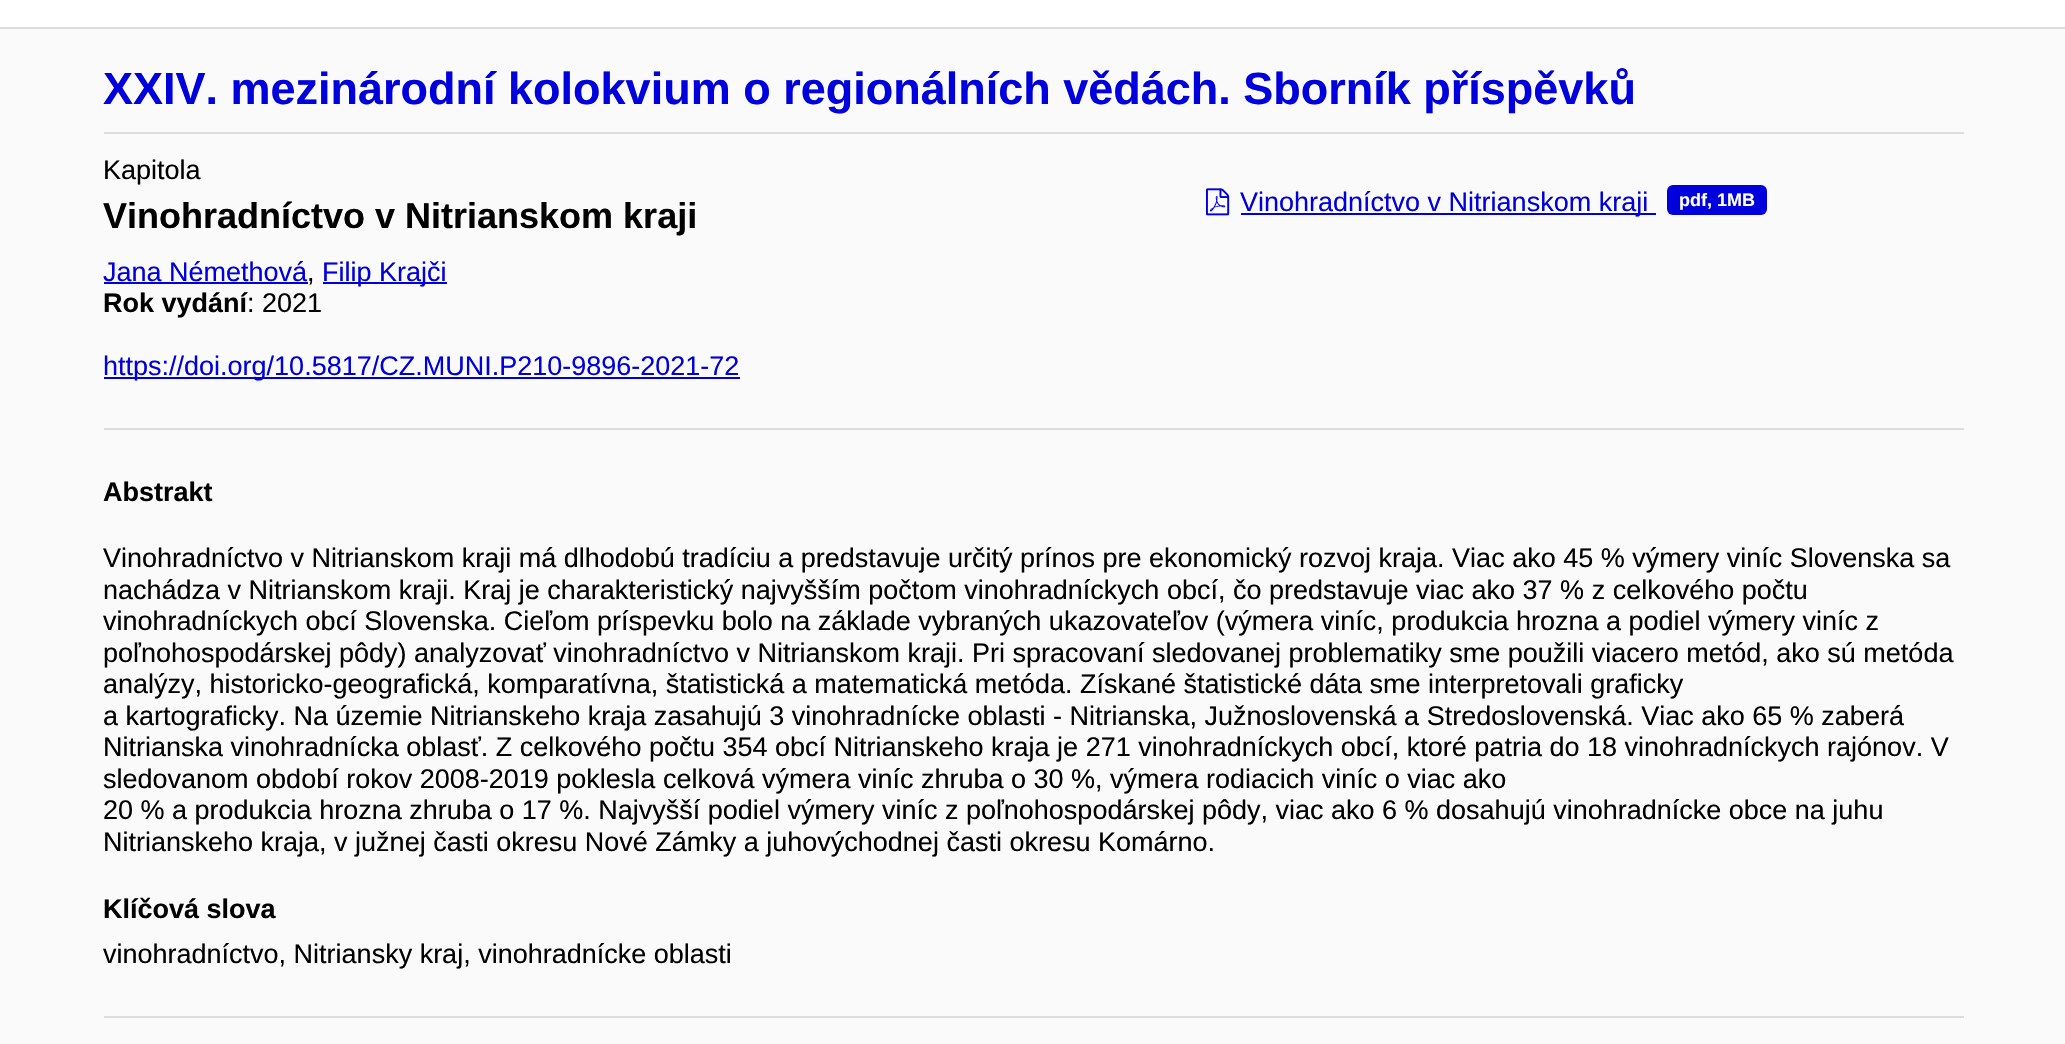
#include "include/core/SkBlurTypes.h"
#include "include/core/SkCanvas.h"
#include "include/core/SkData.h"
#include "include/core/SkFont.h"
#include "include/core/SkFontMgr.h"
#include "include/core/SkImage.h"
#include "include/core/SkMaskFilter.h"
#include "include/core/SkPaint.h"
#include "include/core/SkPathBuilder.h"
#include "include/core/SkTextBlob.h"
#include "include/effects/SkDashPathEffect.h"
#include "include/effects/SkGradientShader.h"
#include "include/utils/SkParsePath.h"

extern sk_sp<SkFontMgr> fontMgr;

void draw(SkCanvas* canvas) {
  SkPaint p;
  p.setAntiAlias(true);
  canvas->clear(SkColorSetRGB(250, 250, 250));
  p.setColor(SK_ColorWHITE);
  canvas->drawRect(SkRect::MakeLTRB(0, 0, 2065, 27), p);
  p.setColor(SkColorSetRGB(220, 220, 220));
  canvas->drawRect(SkRect::MakeLTRB(0, 27, 2065, 29), p);
  p.setColor(SkColorSetRGB(221, 221, 221));
  canvas->drawRect(SkRect::MakeLTRB(104, 132, 1964, 134), p);
  p.setColor(SkColorSetRGB(0, 0, 220));
  canvas->drawRect(SkRect::MakeLTRB(104, 282, 308, 284), p);
  canvas->drawRect(SkRect::MakeLTRB(323, 282, 447, 284), p);
  canvas->drawRect(SkRect::MakeLTRB(104, 377, 740, 379), p);
  canvas->drawImageRect(SkImages::DeferredFromEncodedData(SkData::MakeFromFileName("images/1.png")), SkRect::MakeLTRB(1206, 188, 1230, 216), SkSamplingOptions());
  canvas->drawRect(SkRect::MakeLTRB(1241, 213, 1656, 215), p);
  canvas->drawRoundRect(SkRect::MakeLTRB(1667, 185, 1767, 215), 6, 6, p);
  p.setColor(SkColorSetRGB(220, 220, 220));
  canvas->drawRect(SkRect::MakeLTRB(104, 428, 1964, 430), p);
  canvas->drawRect(SkRect::MakeLTRB(104, 1016, 1964, 1018), p);
  SkFont font1(fontMgr->matchFamilyStyle("Liberation Sans", SkFontStyle::Bold()), 45);
  font1.setSubpixel(true);
  p.setColor(SkColorSetRGB(0, 0, 220));
  canvas->drawString("XXIV. mezinárodní kolokvium o regionálních vědách. Sborník příspěvků", 103, 104, font1, p);
  SkFont font2(fontMgr->matchFamilyStyle("Liberation Sans", SkFontStyle::Normal()), 27);
  font2.setSubpixel(true);
  p.setColor(SK_ColorBLACK);
  canvas->drawString("Kapitola", 103, 179, font2, p);
  SkFont font3(fontMgr->matchFamilyStyle("Liberation Sans", SkFontStyle::Bold()), 36);
  font3.setSubpixel(true);
  canvas->drawString("Vinohradníctvo v Nitrianskom kraji", 103, 228, font3, p);
  p.setColor(SkColorSetRGB(0, 0, 220));
  canvas->drawString("Jana Némethová", 103, 281, font2, p);
  p.setColor(SK_ColorBLACK);
  canvas->drawString(",", 307, 281, font2, p);
  p.setColor(SkColorSetRGB(0, 0, 220));
  canvas->drawString("Filip Krajči", 322, 281, font2, p);
  SkFont font4(fontMgr->matchFamilyStyle("Liberation Sans", SkFontStyle::Bold()), 27);
  font4.setSubpixel(true);
  p.setColor(SK_ColorBLACK);
  canvas->drawString("Rok vydání", 103, 312, font4, p);
  canvas->drawString(": 2021", 247, 312, font2, p);
  p.setColor(SkColorSetRGB(0, 0, 220));
  canvas->drawString("https://doi.org/10.5817/CZ.MUNI.P210-9896-2021-72", 103, 375, font2, p);
  canvas->drawString("Vinohradníctvo v Nitrianskom kraji", 1240, 211, font2, p);
  SkFont font5(fontMgr->matchFamilyStyle("Liberation Sans", SkFontStyle::Bold()), 18);
  font5.setSubpixel(true);
  p.setColor(SK_ColorWHITE);
  canvas->drawString("pdf, 1MB", 1679, 206, font5, p);
  p.setColor(SK_ColorBLACK);
  canvas->drawString("Abstrakt", 103, 501, font4, p);
  canvas->drawString("Vinohradníctvo v Nitrianskom kraji má dlhodobú tradíciu a predstavuje určitý prínos pre ekonomický rozvoj kraja. Viac ako 45 % výmery viníc Slovenska sa", 103, 567, font2, p);
  canvas->drawString("nachádza v Nitrianskom kraji. Kraj je charakteristický najvyšším počtom vinohradníckych obcí, čo predstavuje viac ako 37 % z celkového počtu", 103, 599, font2, p);
  canvas->drawString("vinohradníckych obcí Slovenska. Cieľom príspevku bolo na základe vybraných ukazovateľov (výmera viníc, produkcia hrozna a podiel výmery viníc z", 103, 630, font2, p);
  canvas->drawString("poľnohospodárskej pôdy) analyzovať vinohradníctvo v Nitrianskom kraji. Pri spracovaní sledovanej problematiky sme použili viacero metód, ako sú metóda", 103, 662, font2, p);
  canvas->drawString("analýzy, historicko-geografická, komparatívna, štatistická a matematická metóda. Získané štatistické dáta sme interpretovali graficky", 103, 693, font2, p);
  canvas->drawString("a kartograficky. Na územie Nitrianskeho kraja zasahujú 3 vinohradnícke oblasti - Nitrianska, Južnoslovenská a Stredoslovenská. Viac ako 65 % zaberá", 103, 725, font2, p);
  canvas->drawString("Nitrianska vinohradnícka oblasť. Z celkového počtu 354 obcí Nitrianskeho kraja je 271 vinohradníckych obcí, ktoré patria do 18 vinohradníckych rajónov. V", 103, 756, font2, p);
  canvas->drawString("sledovanom období rokov 2008-2019 poklesla celková výmera viníc zhruba o 30 %, výmera rodiacich viníc o viac ako", 103, 788, font2, p);
  canvas->drawString("20 % a produkcia hrozna zhruba o 17 %. Najvyšší podiel výmery viníc z poľnohospodárskej pôdy, viac ako 6 % dosahujú vinohradnícke obce na juhu", 103, 819, font2, p);
  canvas->drawString("Nitrianskeho kraja, v južnej časti okresu Nové Zámky a juhovýchodnej časti okresu Komárno.", 103, 851, font2, p);
  canvas->drawString("Klíčová slova", 103, 918, font4, p);
  canvas->drawString("vinohradníctvo, Nitriansky kraj, vinohradnícke oblasti", 103, 963, font2, p);
}
